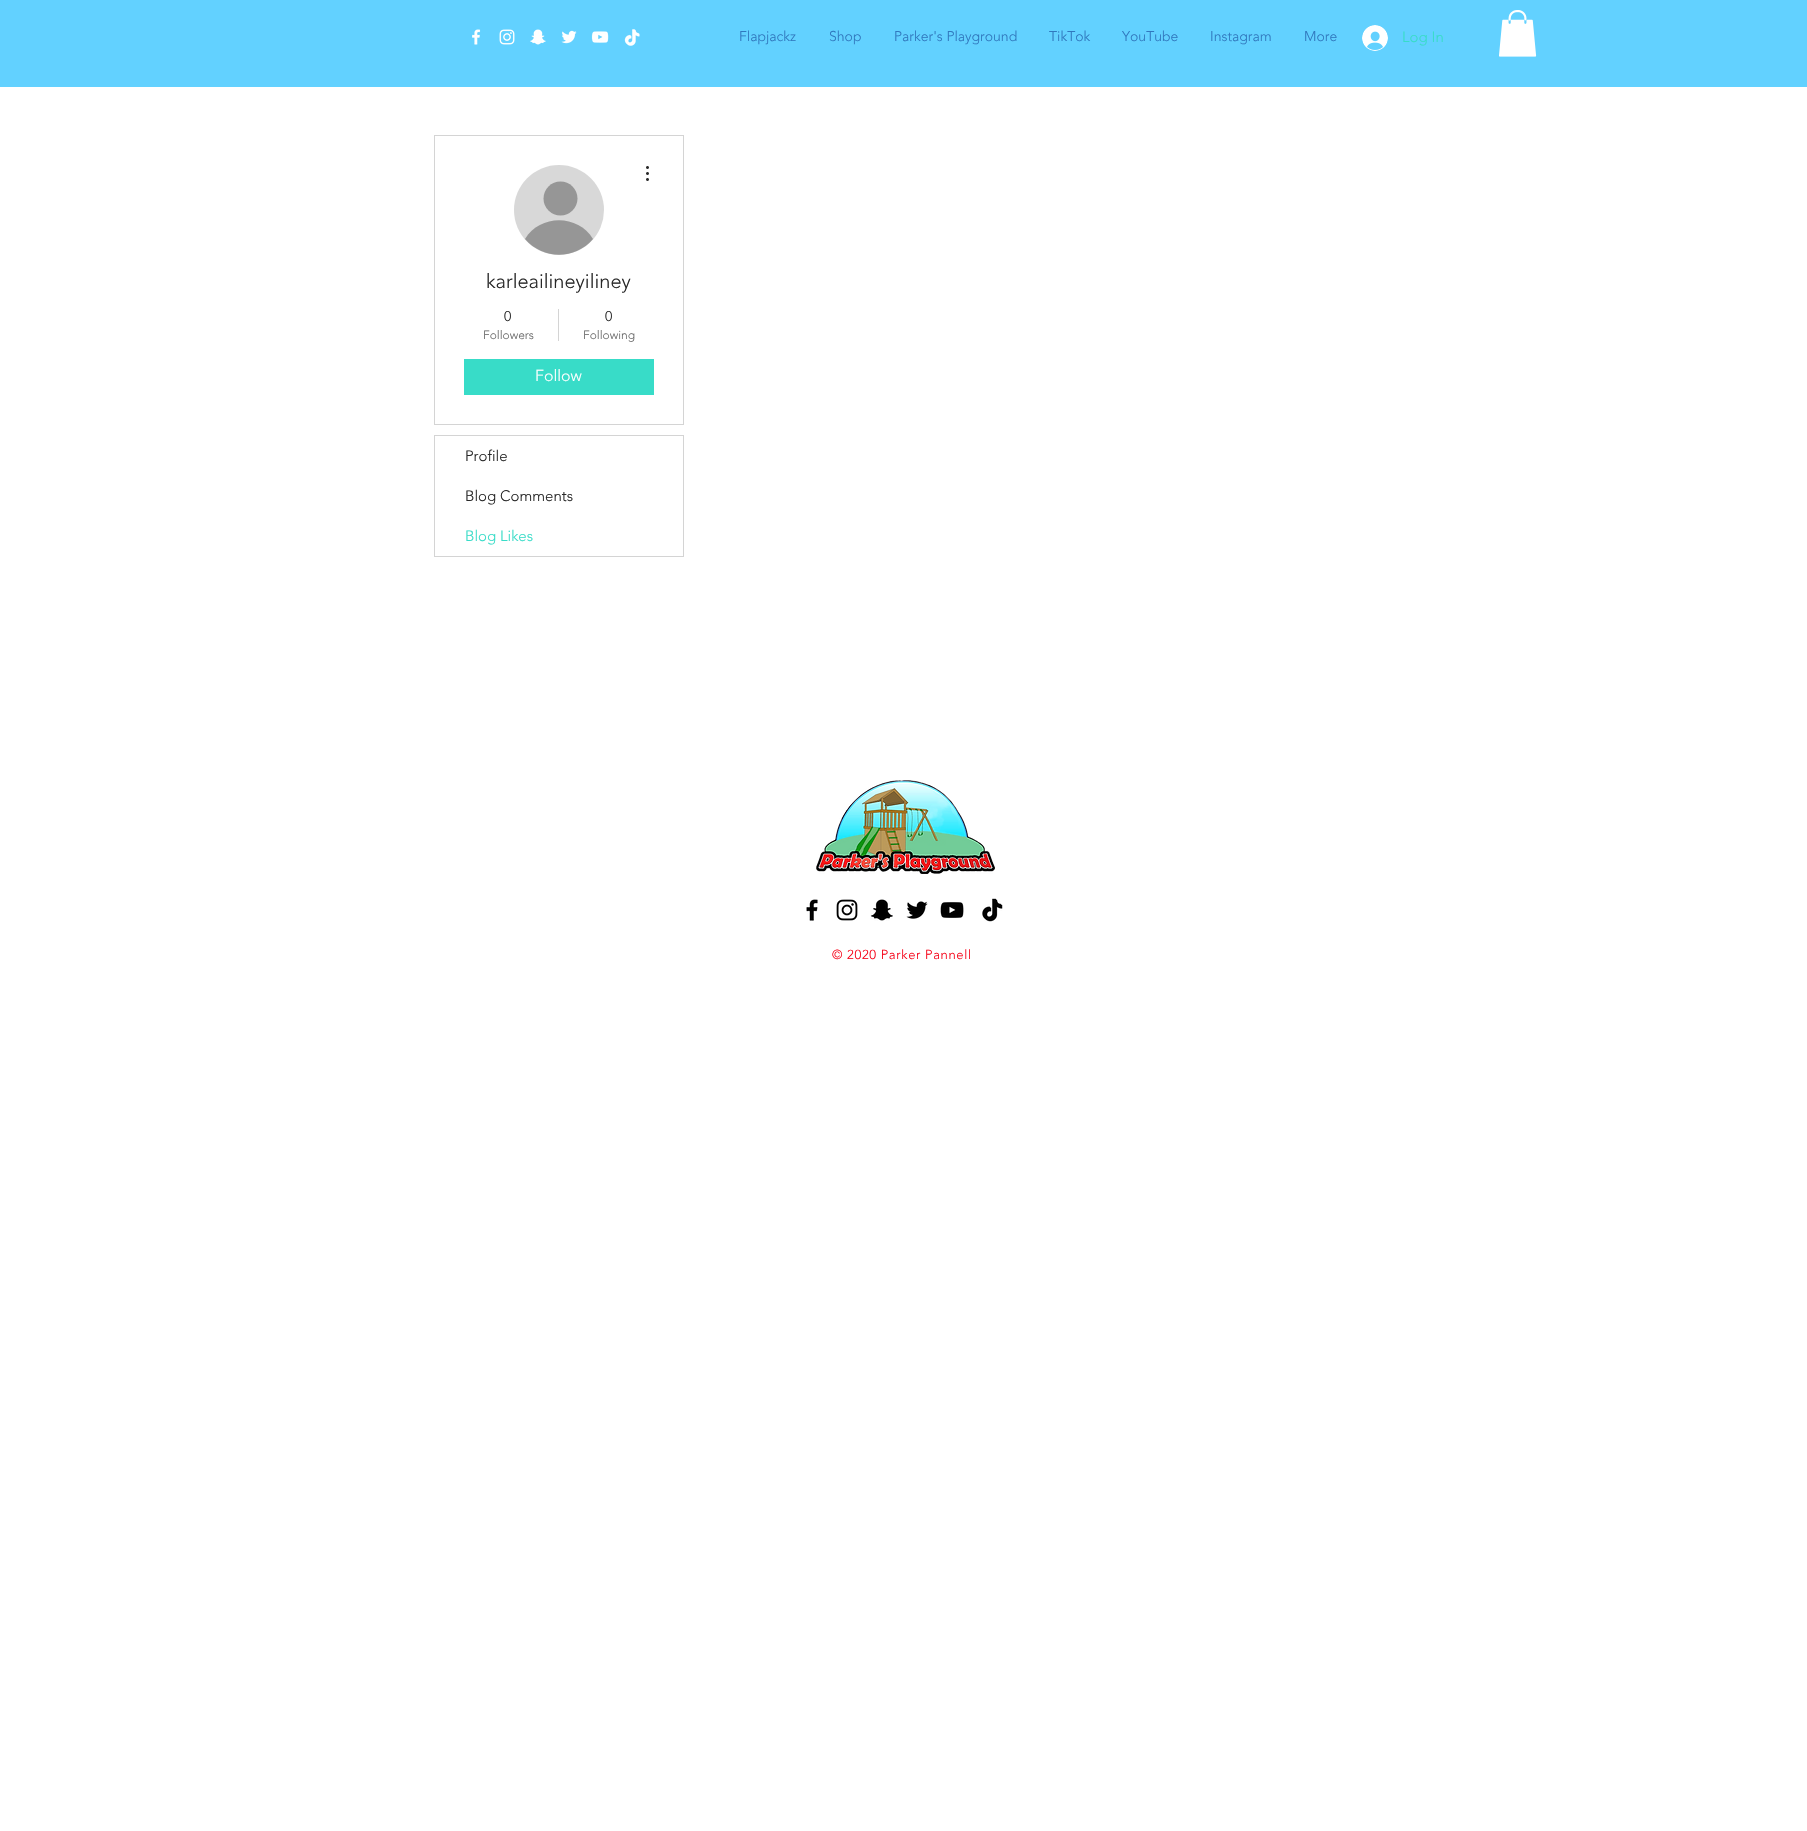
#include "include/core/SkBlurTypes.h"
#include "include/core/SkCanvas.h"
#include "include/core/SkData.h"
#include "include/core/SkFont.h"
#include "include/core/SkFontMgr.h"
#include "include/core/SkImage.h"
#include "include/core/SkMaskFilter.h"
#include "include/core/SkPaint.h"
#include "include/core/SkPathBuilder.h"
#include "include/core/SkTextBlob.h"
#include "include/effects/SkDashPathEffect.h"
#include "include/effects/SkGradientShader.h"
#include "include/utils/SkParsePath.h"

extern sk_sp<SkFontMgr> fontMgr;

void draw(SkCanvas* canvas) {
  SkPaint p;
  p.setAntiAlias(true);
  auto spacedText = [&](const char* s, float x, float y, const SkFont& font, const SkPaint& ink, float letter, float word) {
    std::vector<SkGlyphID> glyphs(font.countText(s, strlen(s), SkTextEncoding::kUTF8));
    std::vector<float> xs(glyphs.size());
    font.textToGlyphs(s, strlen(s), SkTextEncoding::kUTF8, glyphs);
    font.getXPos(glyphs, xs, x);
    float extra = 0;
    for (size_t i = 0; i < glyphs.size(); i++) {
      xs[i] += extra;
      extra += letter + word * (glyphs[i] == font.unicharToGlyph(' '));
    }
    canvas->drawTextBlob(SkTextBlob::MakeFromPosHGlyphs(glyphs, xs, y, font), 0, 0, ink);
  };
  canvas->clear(SK_ColorWHITE);
  p.setColor(SkColorSetRGB(98, 209, 255));
  canvas->drawRect(SkRect::MakeLTRB(0, 0, 1807, 87), p);
  canvas->drawImageRect(SkImages::DeferredFromEncodedData(SkData::MakeFromFileName("images/1.png")), SkRect::MakeLTRB(472, 29, 481, 45), SkSamplingOptions());
  canvas->drawImageRect(SkImages::DeferredFromEncodedData(SkData::MakeFromFileName("images/2.png")), SkRect::MakeLTRB(499, 29, 515, 45), SkSamplingOptions());
  canvas->drawImageRect(SkImages::DeferredFromEncodedData(SkData::MakeFromFileName("images/3.png")), SkRect::MakeLTRB(530, 29, 546, 45), SkSamplingOptions());
  canvas->drawImageRect(SkImages::DeferredFromEncodedData(SkData::MakeFromFileName("images/4.png")), SkRect::MakeLTRB(561, 30, 577, 44), SkSamplingOptions());
  canvas->drawImageRect(SkImages::DeferredFromEncodedData(SkData::MakeFromFileName("images/5.png")), SkRect::MakeLTRB(591, 31, 609, 43), SkSamplingOptions());
  canvas->drawImageRect(SkImages::DeferredFromEncodedData(SkData::MakeFromFileName("images/6.png")), SkRect::MakeLTRB(624, 29, 640, 46), SkSamplingOptions());
  canvas->drawImageRect(SkImages::DeferredFromEncodedData(SkData::MakeFromFileName("images/7.png")), SkRect::MakeLTRB(1362, 25, 1388, 51), SkSamplingOptions());
  canvas->drawImageRect(SkImages::DeferredFromEncodedData(SkData::MakeFromFileName("images/8.png")), SkRect::MakeLTRB(1499, 10, 1537, 57), SkSamplingOptions());
  p.setStyle(SkPaint::kStroke_Style);
  p.setStrokeWidth(1);
  p.setColor(SkColorSetRGB(212, 212, 212));
  canvas->drawRect(SkRect::MakeLTRB(434.5f, 135.5f, 683.5f, 424.5f), p);
  p.setStyle(SkPaint::kFill_Style);
  p.setColor(SkColorSetRGB(216, 216, 216));
  canvas->drawCircle(559, 210, 45, p);
  p.setColor(SkColorSetRGB(150, 150, 150));
  canvas->drawCircle(560.5f, 198.5f, 17, p);
  canvas->drawPath(SkPathBuilder().moveTo(593, 239).cubicTo(575, 260, 543, 260, 525, 239).cubicTo(540, 214, 578, 214, 593, 239).close().detach(), p);
  canvas->drawImageRect(SkImages::DeferredFromEncodedData(SkData::MakeFromFileName("images/9.png")), SkRect::MakeLTRB(646, 166, 649, 181), SkSamplingOptions());
  p.setColor(SkColorSetRGB(212, 212, 212));
  canvas->drawRect(SkRect::MakeLTRB(558, 309, 559, 341), p);
  p.setColor(SkColorSetRGB(56, 220, 200));
  canvas->drawRect(SkRect::MakeLTRB(464, 359, 654, 395), p);
  p.setStyle(SkPaint::kStroke_Style);
  p.setColor(SkColorSetRGB(212, 212, 212));
  canvas->drawRect(SkRect::MakeLTRB(434.5f, 435.5f, 683.5f, 556.5f), p);
  canvas->drawImageRect(SkImages::DeferredFromEncodedData(SkData::MakeFromFileName("images/10.png")), SkRect::MakeLTRB(816, 780, 995, 874), SkSamplingOptions());
  canvas->drawImageRect(SkImages::DeferredFromEncodedData(SkData::MakeFromFileName("images/11.png")), SkRect::MakeLTRB(806, 899, 818, 921), SkSamplingOptions());
  canvas->drawImageRect(SkImages::DeferredFromEncodedData(SkData::MakeFromFileName("images/12.png")), SkRect::MakeLTRB(836, 899, 858, 921), SkSamplingOptions());
  canvas->drawImageRect(SkImages::DeferredFromEncodedData(SkData::MakeFromFileName("images/13.png")), SkRect::MakeLTRB(870, 899, 893, 921), SkSamplingOptions());
  canvas->drawImageRect(SkImages::DeferredFromEncodedData(SkData::MakeFromFileName("images/14.png")), SkRect::MakeLTRB(906, 901, 928, 919), SkSamplingOptions());
  canvas->drawImageRect(SkImages::DeferredFromEncodedData(SkData::MakeFromFileName("images/15.png")), SkRect::MakeLTRB(940, 902, 964, 918), SkSamplingOptions());
  canvas->drawImageRect(SkImages::DeferredFromEncodedData(SkData::MakeFromFileName("images/16.png")), SkRect::MakeLTRB(982, 898, 1003, 922), SkSamplingOptions());
  SkFont font1(fontMgr->matchFamilyStyle("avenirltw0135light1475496", SkFontStyle(300, SkFontStyle::kNormal_Width, SkFontStyle::kUpright_Slant)), 14);
  font1.setSubpixel(true);
  p.setStyle(SkPaint::kFill_Style);
  p.setColor(SkColorSetRGB(48, 120, 190));
  canvas->drawString("Flapjackz", 739, 41, font1, p);
  canvas->drawString("Shop", 829, 41, font1, p);
  canvas->drawString("Parker's Playground", 894, 41, font1, p);
  canvas->drawString("TikTok", 1049, 41, font1, p);
  canvas->drawString("YouTube", 1122, 41, font1, p);
  canvas->drawString("Instagram", 1210, 41, font1, p);
  canvas->drawString("More", 1304, 41, font1, p);
  SkFont font2(fontMgr->matchFamilyStyle("avenirltw0135light1475496", SkFontStyle(300, SkFontStyle::kNormal_Width, SkFontStyle::kUpright_Slant)), 15);
  font2.setSubpixel(true);
  p.setColor(SkColorSetRGB(56, 220, 200));
  canvas->drawString("Log In", 1402, 42, font2, p);
  SkFont font3(fontMgr->matchFamilyStyle("avenirltw0135light1475496", SkFontStyle(300, SkFontStyle::kNormal_Width, SkFontStyle::kUpright_Slant)), 20);
  font3.setSubpixel(true);
  p.setColor(SkColorSetRGB(40, 40, 40));
  canvas->drawString("karleailineyiliney", 486, 288, font3, p);
  canvas->drawString("0", 504, 321, font1, p);
  SkFont font4(fontMgr->matchFamilyStyle("avenirltw0135light1475496", SkFontStyle(300, SkFontStyle::kNormal_Width, SkFontStyle::kUpright_Slant)), 12);
  font4.setSubpixel(true);
  p.setColor(SkColorSetRGB(105, 105, 105));
  canvas->drawString("Followers", 483, 339, font4, p);
  p.setColor(SkColorSetRGB(40, 40, 40));
  canvas->drawString("0", 605, 321, font1, p);
  p.setColor(SkColorSetRGB(105, 105, 105));
  canvas->drawString("Following", 583, 339, font4, p);
  SkFont font5(fontMgr->matchFamilyStyle("avenirltw0135light1475496", SkFontStyle(300, SkFontStyle::kNormal_Width, SkFontStyle::kUpright_Slant)), 16);
  font5.setSubpixel(true);
  p.setColor(SK_ColorWHITE);
  canvas->drawString("Follow", 535, 381, font5, p);
  p.setColor(SkColorSetRGB(40, 40, 40));
  canvas->drawString("Profile", 465, 461, font2, p);
  canvas->drawString("Blog Comments", 465, 501, font2, p);
  p.setColor(SkColorSetRGB(56, 220, 200));
  canvas->drawString("Blog Likes", 465, 541, font2, p);
  SkFont font6(fontMgr->matchFamilyStyle("avenirltw0135light1475496", SkFontStyle(300, SkFontStyle::kNormal_Width, SkFontStyle::kUpright_Slant)), 13);
  font6.setSubpixel(true);
  p.setColor(SkColorSetRGB(246, 4, 25));
  spacedText("© 2020 Parker Pannell", 832, 959, font6, p, 0.65f, 0);
}
